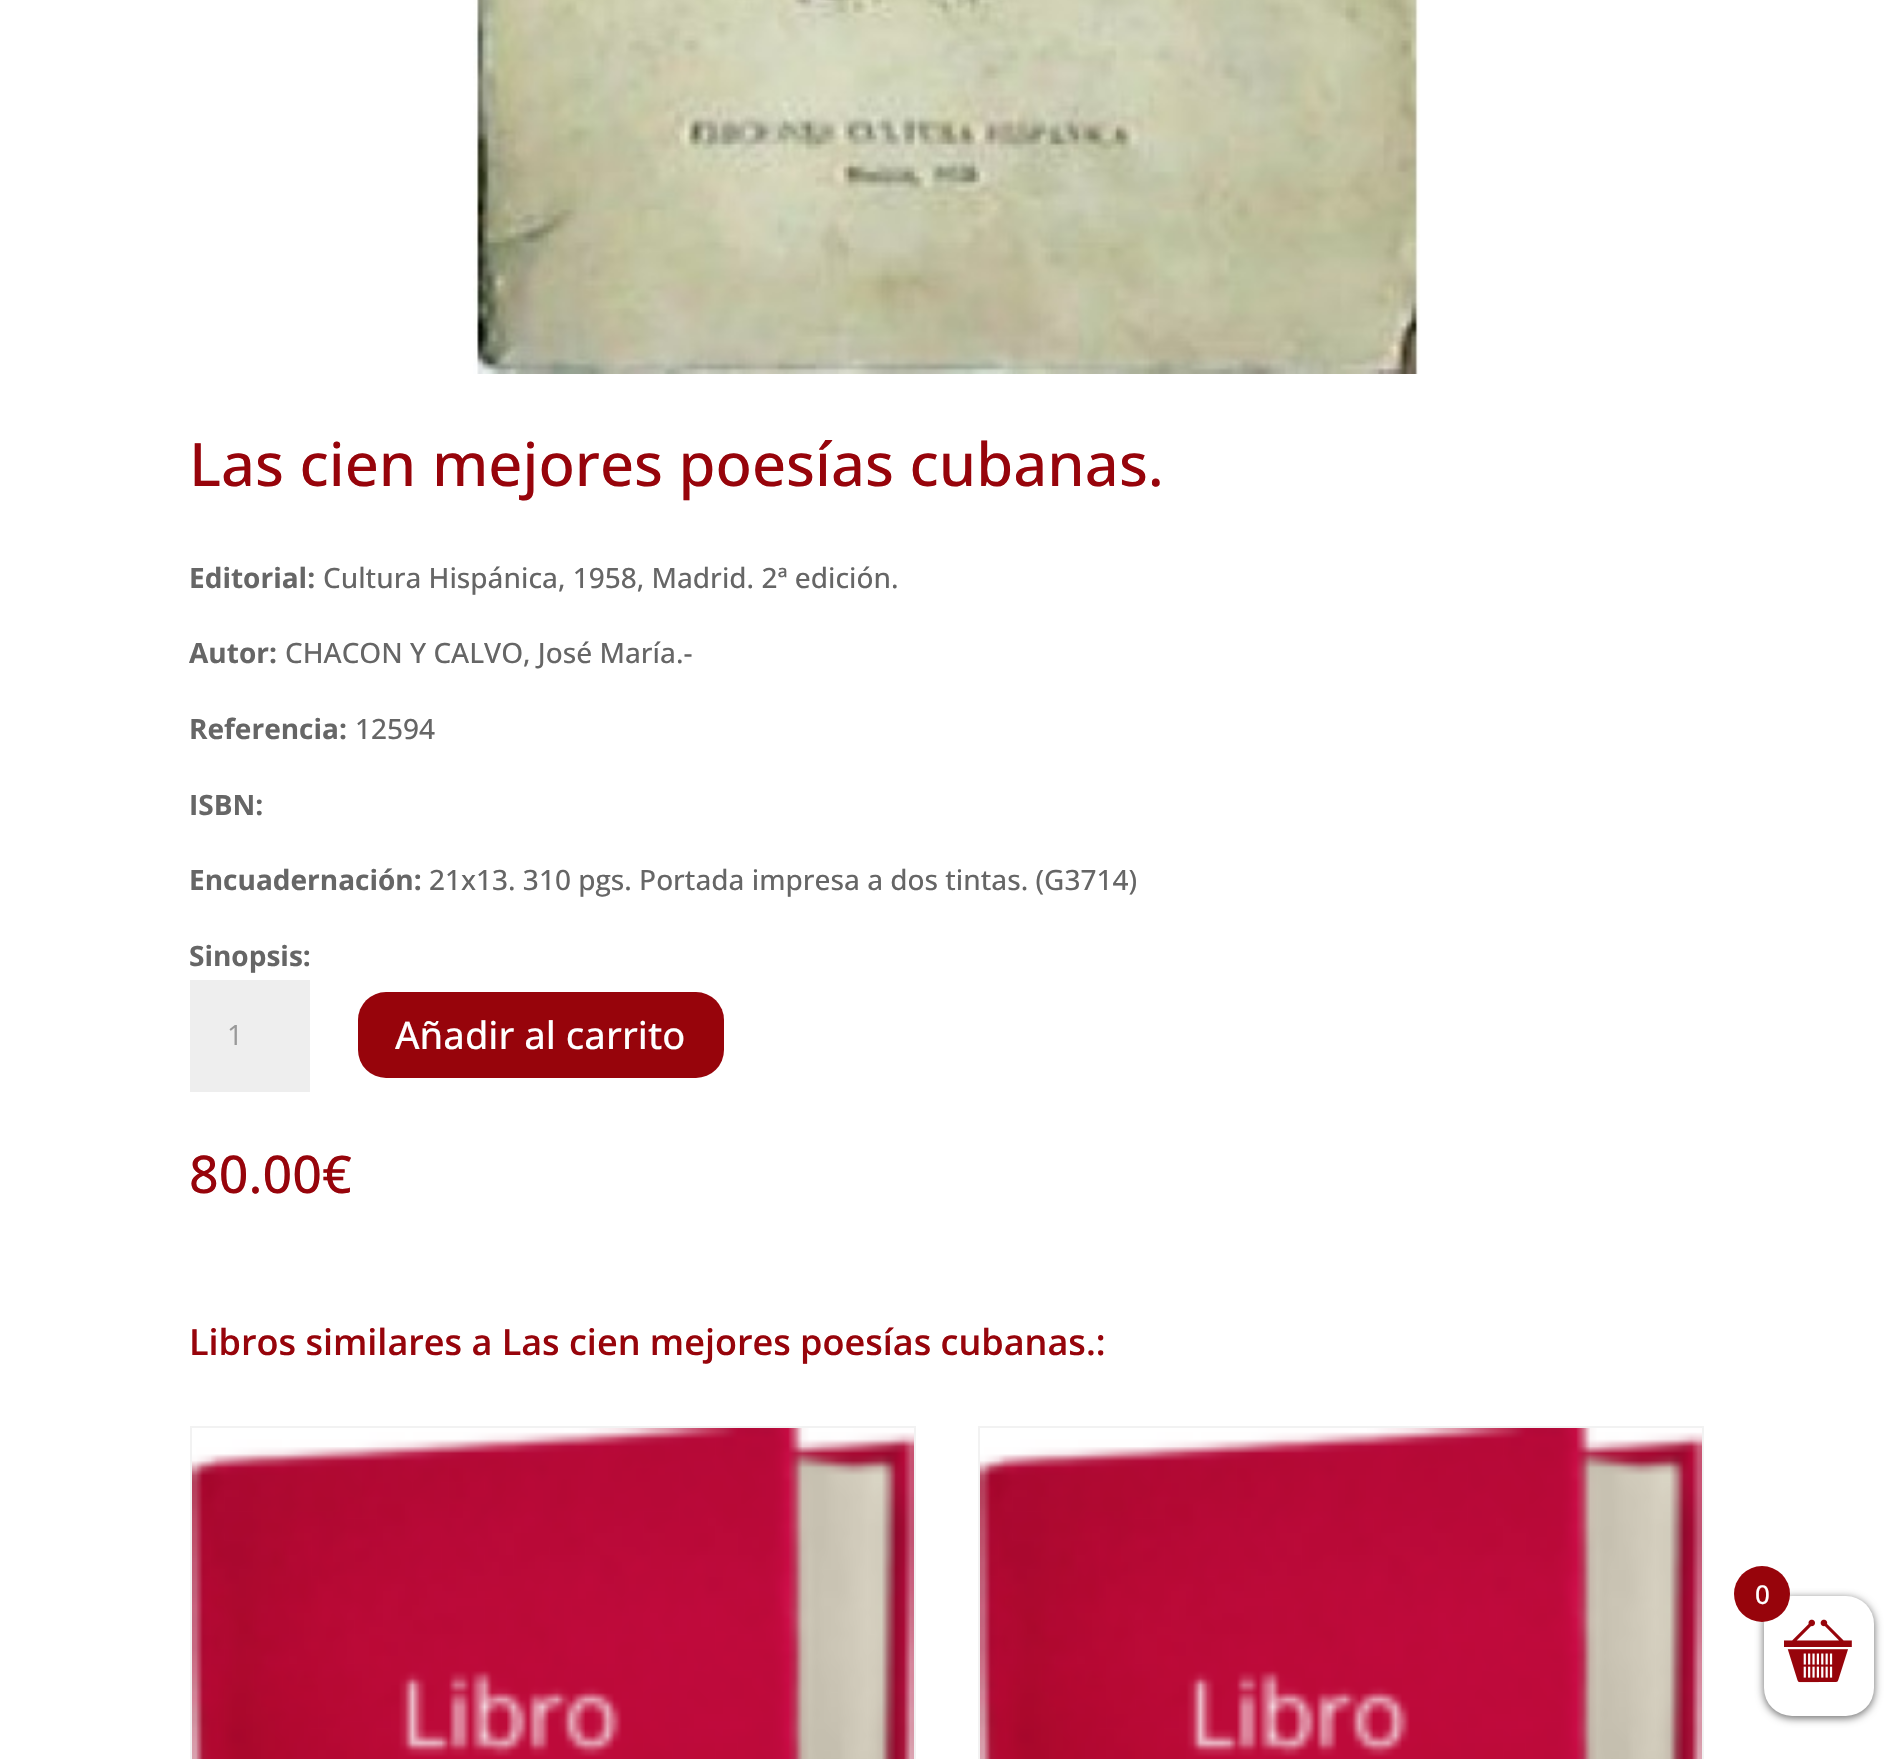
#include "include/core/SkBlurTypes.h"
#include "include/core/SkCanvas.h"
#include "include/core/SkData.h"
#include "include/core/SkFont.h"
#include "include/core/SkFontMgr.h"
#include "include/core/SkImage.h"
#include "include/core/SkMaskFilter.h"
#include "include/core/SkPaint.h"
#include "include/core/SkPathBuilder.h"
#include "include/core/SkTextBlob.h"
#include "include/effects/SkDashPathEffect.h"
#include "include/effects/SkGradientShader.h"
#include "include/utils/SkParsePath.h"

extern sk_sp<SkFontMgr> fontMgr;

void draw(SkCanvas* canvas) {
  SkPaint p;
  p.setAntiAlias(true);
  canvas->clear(SK_ColorWHITE);
  canvas->drawImageRect(SkImages::DeferredFromEncodedData(SkData::MakeFromFileName("images/1.png")), SkRect::MakeLTRB(473, 0, 1420, 374), SkSamplingOptions());
  p.setColor(SkColorSetRGB(238, 238, 238));
  canvas->drawRect(SkRect::MakeLTRB(190, 980, 310, 1092), p);
  p.setColor(SkColorSetRGB(151, 4, 11));
  canvas->drawRoundRect(SkRect::MakeLTRB(358, 992, 724, 1078), 28, 28, p);
  p.setStyle(SkPaint::kStroke_Style);
  p.setStrokeWidth(2);
  p.setColor(SkColorSetRGB(242, 242, 242));
  canvas->drawRect(SkRect::MakeLTRB(191, 1427, 915, 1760), p);
  canvas->drawImageRect(SkImages::DeferredFromEncodedData(SkData::MakeFromFileName("images/2.png")), SkRect::MakeLTRB(192, 1428, 914, 1759), SkSamplingOptions());
  canvas->drawRect(SkRect::MakeLTRB(979, 1427, 1703, 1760), p);
  canvas->drawImageRect(SkImages::DeferredFromEncodedData(SkData::MakeFromFileName("images/2.png")), SkRect::MakeLTRB(980, 1428, 1702, 1759), SkSamplingOptions());
  p.setStyle(SkPaint::kFill_Style);
  p.setColor(SkColorSetRGB(102, 102, 102));
  p.setMaskFilter(SkMaskFilter::MakeBlur(kNormal_SkBlurStyle, 4));
  canvas->drawRoundRect(SkRect::MakeLTRB(1764, 1598, 1874, 1718), 28, 28, p);
  p.setMaskFilter(nullptr);
  p.setColor(SK_ColorWHITE);
  canvas->drawRoundRect(SkRect::MakeLTRB(1764, 1596, 1874, 1716), 28, 28, p);
  canvas->drawImageRect(SkImages::DeferredFromEncodedData(SkData::MakeFromFileName("images/3.png")), SkRect::MakeLTRB(1784, 1619, 1852, 1683), SkSamplingOptions());
  p.setColor(SkColorSetRGB(151, 4, 11));
  canvas->drawCircle(1762, 1594, 28, p);
  SkFont font1(fontMgr->matchFamilyStyle("Open Sans", SkFontStyle(500, SkFontStyle::kNormal_Width, SkFontStyle::kUpright_Slant)), 60);
  font1.setSubpixel(true);
  canvas->drawString("Las cien mejores poesías cubanas.", 189, 486, font1, p);
  SkFont font2(fontMgr->matchFamilyStyle("Open Sans", SkFontStyle::Bold()), 28);
  font2.setSubpixel(true);
  p.setColor(SkColorSetRGB(102, 102, 102));
  canvas->drawString("Editorial:", 189, 588, font2, p);
  SkFont font3(fontMgr->matchFamilyStyle("Open Sans", SkFontStyle(500, SkFontStyle::kNormal_Width, SkFontStyle::kUpright_Slant)), 28);
  font3.setSubpixel(true);
  canvas->drawString("Cultura Hispánica, 1958, Madrid. 2ª edición.", 323, 588, font3, p);
  canvas->drawString("Autor:", 189, 663, font2, p);
  canvas->drawString("CHACON Y CALVO, José María.-", 285, 663, font3, p);
  canvas->drawString("Referencia:", 189, 739, font2, p);
  canvas->drawString("12594", 355, 739, font3, p);
  canvas->drawString("ISBN:", 189, 815, font2, p);
  canvas->drawString("Encuadernación:", 189, 890, font2, p);
  canvas->drawString("21x13. 310 pgs. Portada impresa a dos tintas. (G3714)", 429, 890, font3, p);
  canvas->drawString("Sinopsis:", 189, 966, font2, p);
  SkFont font4(fontMgr->matchFamilyStyle("Open Sans", SkFontStyle::Normal()), 28);
  font4.setSubpixel(true);
  p.setColor(SkColorSetRGB(153, 153, 153));
  canvas->drawString("1", 227, 1045, font4, p);
  SkFont font5(fontMgr->matchFamilyStyle("Open Sans", SkFontStyle(500, SkFontStyle::kNormal_Width, SkFontStyle::kUpright_Slant)), 38);
  font5.setSubpixel(true);
  p.setColor(SK_ColorWHITE);
  canvas->drawString("Añadir al carrito", 395, 1049, font5, p);
  SkFont font6(fontMgr->matchFamilyStyle("Open Sans", SkFontStyle(500, SkFontStyle::kNormal_Width, SkFontStyle::kUpright_Slant)), 52);
  font6.setSubpixel(true);
  p.setColor(SkColorSetRGB(151, 4, 11));
  canvas->drawString("80.00€", 189, 1193, font6, p);
  SkFont font7(fontMgr->matchFamilyStyle("Open Sans", SkFontStyle(600, SkFontStyle::kNormal_Width, SkFontStyle::kUpright_Slant)), 36);
  font7.setSubpixel(true);
  canvas->drawString("Libros similares a Las cien mejores poesías cubanas.:", 189, 1355, font7, p);
  SkFont font8(fontMgr->matchFamilyStyle("Open Sans", SkFontStyle(500, SkFontStyle::kNormal_Width, SkFontStyle::kUpright_Slant)), 26);
  font8.setSubpixel(true);
  p.setColor(SK_ColorWHITE);
  canvas->drawString("0", 1755, 1604, font8, p);
}
